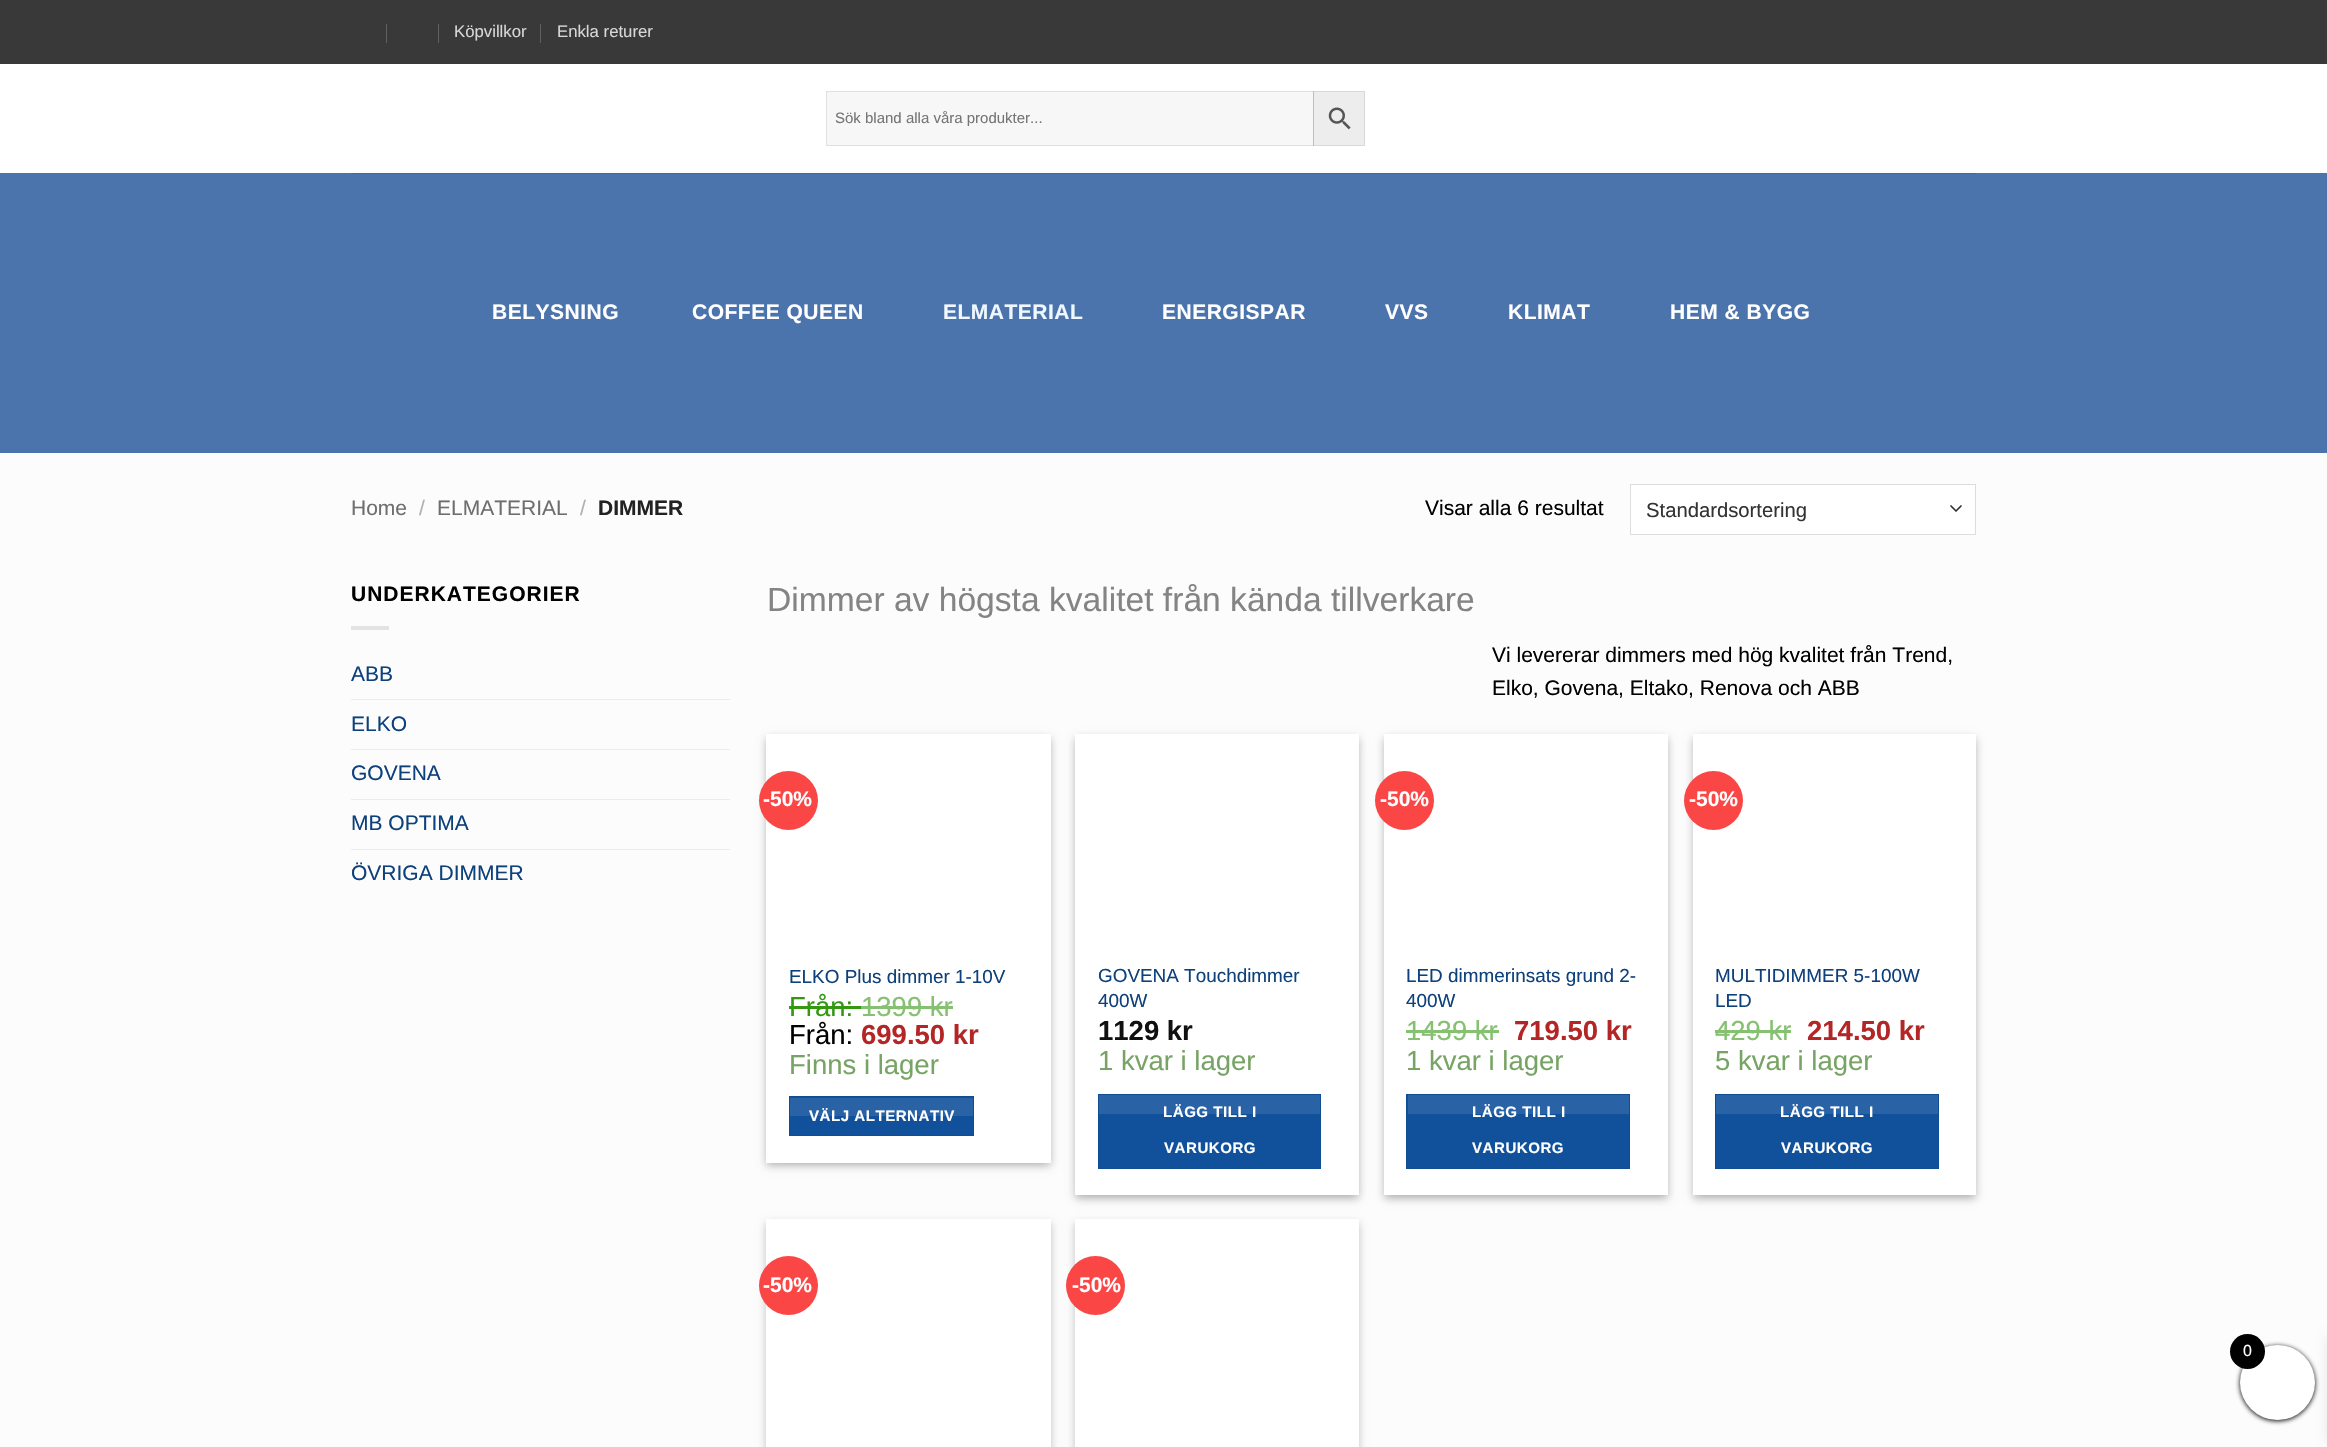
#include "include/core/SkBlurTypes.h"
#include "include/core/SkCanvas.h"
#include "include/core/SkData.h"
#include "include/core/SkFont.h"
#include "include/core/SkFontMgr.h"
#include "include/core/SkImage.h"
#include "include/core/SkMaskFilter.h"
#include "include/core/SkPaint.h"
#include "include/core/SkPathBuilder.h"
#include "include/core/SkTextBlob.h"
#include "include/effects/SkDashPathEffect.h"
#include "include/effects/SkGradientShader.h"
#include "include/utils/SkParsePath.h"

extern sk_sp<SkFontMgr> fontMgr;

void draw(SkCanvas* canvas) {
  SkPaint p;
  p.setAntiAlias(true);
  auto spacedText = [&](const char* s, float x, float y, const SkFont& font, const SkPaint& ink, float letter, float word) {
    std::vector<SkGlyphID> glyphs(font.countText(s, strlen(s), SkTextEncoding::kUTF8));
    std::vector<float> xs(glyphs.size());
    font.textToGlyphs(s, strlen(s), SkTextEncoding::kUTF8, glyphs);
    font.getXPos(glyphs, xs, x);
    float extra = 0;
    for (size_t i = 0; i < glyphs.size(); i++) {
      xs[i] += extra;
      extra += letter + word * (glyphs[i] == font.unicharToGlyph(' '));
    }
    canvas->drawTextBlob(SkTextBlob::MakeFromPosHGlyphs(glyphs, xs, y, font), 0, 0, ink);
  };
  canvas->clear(SkColorSetRGB(252, 252, 252));
  p.setColor(SkColorSetRGB(57, 57, 57));
  canvas->drawRect(SkRect::MakeLTRB(0, 0, 2327, 64), p);
  p.setColor(SkColorSetRGB(97, 97, 97));
  canvas->drawRect(SkRect::MakeLTRB(386, 24, 387, 43), p);
  canvas->drawRect(SkRect::MakeLTRB(438, 24, 439, 43), p);
  canvas->drawRect(SkRect::MakeLTRB(540, 24, 541, 43), p);
  p.setColor(SK_ColorWHITE);
  canvas->drawRect(SkRect::MakeLTRB(0, 64, 2327, 173), p);
  p.setColor(SkColorSetRGB(237, 237, 237));
  canvas->drawRect(SkRect::MakeLTRB(1313.5f, 91.5f, 1364.5f, 145.5f), p);
  p.setStyle(SkPaint::kStroke_Style);
  p.setStrokeWidth(1);
  p.setColor(SkColorSetRGB(216, 216, 216));
  canvas->drawRect(SkRect::MakeLTRB(1313.5f, 91.5f, 1364.5f, 145.5f), p);
  p.setStyle(SkPaint::kFill_Style);
  p.setColor(SkColorSetARGB(8, 0, 0, 0));
  canvas->drawRect(SkRect::MakeLTRB(826, 91, 1314, 146), p);
  p.setStyle(SkPaint::kStroke_Style);
  p.setColor(SkColorSetARGB(23, 0, 0, 0));
  canvas->drawRect(SkRect::MakeLTRB(826.5f, 91.5f, 1313.5f, 145.5f), p);
  canvas->drawImageRect(SkImages::DeferredFromEncodedData(SkData::MakeFromFileName("images/1.png")), SkRect::MakeLTRB(1328, 107, 1351, 130), SkSamplingOptions());
  p.setStyle(SkPaint::kFill_Style);
  p.setColor(SkColorSetRGB(75, 115, 172));
  canvas->drawRect(SkRect::MakeLTRB(0, 173, 2327, 453), p);
  p.setColor(SkColorSetRGB(68, 104, 155));
  canvas->drawRect(SkRect::MakeLTRB(351, 173, 1976, 174), p);
  p.setColor(SK_ColorWHITE);
  canvas->drawRect(SkRect::MakeLTRB(1631, 485, 1975, 534), p);
  p.setStyle(SkPaint::kStroke_Style);
  p.setStrokeWidth(1.7f);
  p.setStrokeCap(SkPaint::kRound_Cap);
  p.setStrokeJoin(SkPaint::kRound_Join);
  p.setColor(SkColorSetRGB(51, 51, 51));
  canvas->drawPath(SkPathBuilder().moveTo(1951, 506).lineTo(1956, 511).lineTo(1961, 506).detach(), p);
  p.setStrokeWidth(1);
  p.setStrokeCap(SkPaint::kButt_Cap);
  p.setStrokeJoin(SkPaint::kMiter_Join);
  p.setColor(SkColorSetRGB(221, 221, 221));
  canvas->drawRect(SkRect::MakeLTRB(1630.5f, 484.5f, 1975.5f, 534.5f), p);
  p.setStyle(SkPaint::kFill_Style);
  p.setColor(SkColorSetRGB(227, 227, 227));
  canvas->drawRect(SkRect::MakeLTRB(351, 626, 389, 630), p);
  p.setColor(SkColorSetRGB(236, 236, 236));
  canvas->drawRect(SkRect::MakeLTRB(351, 699, 730, 700), p);
  canvas->drawRect(SkRect::MakeLTRB(351, 749, 730, 750), p);
  canvas->drawRect(SkRect::MakeLTRB(351, 799, 730, 800), p);
  canvas->drawRect(SkRect::MakeLTRB(351, 849, 730, 850), p);
  p.setColor(SkColorSetARGB(59, 0, 0, 0));
  p.setMaskFilter(SkMaskFilter::MakeBlur(kNormal_SkBlurStyle, 4));
  canvas->drawRect(SkRect::MakeLTRB(766, 738, 1051, 1166), p);
  p.setMaskFilter(nullptr);
  p.setColor(SkColorSetARGB(41, 0, 0, 0));
  p.setMaskFilter(SkMaskFilter::MakeBlur(kNormal_SkBlurStyle, 4));
  canvas->drawRect(SkRect::MakeLTRB(771, 743, 1046, 1161), p);
  p.setMaskFilter(nullptr);
  p.setColor(SK_ColorWHITE);
  canvas->drawRect(SkRect::MakeLTRB(766, 734, 1051, 1163), p);
  p.setColor(SkColorSetRGB(251, 70, 70));
  canvas->drawCircle(788.5f, 800.5f, 29.5f, p);
  p.setColor(SkColorSetRGB(52, 152, 19));
  canvas->drawRect(SkRect::MakeLTRB(789, 1006, 861, 1009), p);
  p.setColor(SkColorSetRGB(133, 193, 113));
  canvas->drawRect(SkRect::MakeLTRB(861, 1006, 953, 1009), p);
  p.setColor(SkColorSetRGB(17, 81, 155));
  canvas->drawRect(SkRect::MakeLTRB(789.5f, 1096.5f, 973.5f, 1135.5f), p);
  p.setStyle(SkPaint::kStroke_Style);
  p.setColor(SkColorSetRGB(16, 77, 147));
  canvas->drawRect(SkRect::MakeLTRB(789.5f, 1096.5f, 973.5f, 1135.5f), p);
  p.setStyle(SkPaint::kFill_Style);
  p.setColor(SkColorSetARGB(26, 255, 255, 255));
  canvas->drawRect(SkRect::MakeLTRB(790, 1098, 973, 1116), p);
  p.setColor(SkColorSetARGB(59, 0, 0, 0));
  p.setMaskFilter(SkMaskFilter::MakeBlur(kNormal_SkBlurStyle, 4));
  canvas->drawRect(SkRect::MakeLTRB(1075, 738, 1359, 1199), p);
  p.setMaskFilter(nullptr);
  p.setColor(SkColorSetARGB(41, 0, 0, 0));
  p.setMaskFilter(SkMaskFilter::MakeBlur(kNormal_SkBlurStyle, 4));
  canvas->drawRect(SkRect::MakeLTRB(1080, 743, 1354, 1194), p);
  p.setMaskFilter(nullptr);
  p.setColor(SK_ColorWHITE);
  canvas->drawRect(SkRect::MakeLTRB(1075, 734, 1359, 1195), p);
  p.setColor(SkColorSetRGB(17, 81, 155));
  canvas->drawRect(SkRect::MakeLTRB(1098.5f, 1094.5f, 1320.5f, 1168.5f), p);
  p.setStyle(SkPaint::kStroke_Style);
  p.setColor(SkColorSetRGB(16, 77, 147));
  canvas->drawRect(SkRect::MakeLTRB(1098.5f, 1094.5f, 1320.5f, 1168.5f), p);
  p.setStyle(SkPaint::kFill_Style);
  p.setColor(SkColorSetARGB(26, 255, 255, 255));
  canvas->drawRect(SkRect::MakeLTRB(1099, 1095, 1320, 1114), p);
  p.setColor(SkColorSetARGB(59, 0, 0, 0));
  p.setMaskFilter(SkMaskFilter::MakeBlur(kNormal_SkBlurStyle, 4));
  canvas->drawRect(SkRect::MakeLTRB(1384, 738, 1668, 1199), p);
  p.setMaskFilter(nullptr);
  p.setColor(SkColorSetARGB(41, 0, 0, 0));
  p.setMaskFilter(SkMaskFilter::MakeBlur(kNormal_SkBlurStyle, 4));
  canvas->drawRect(SkRect::MakeLTRB(1389, 743, 1663, 1194), p);
  p.setMaskFilter(nullptr);
  p.setColor(SK_ColorWHITE);
  canvas->drawRect(SkRect::MakeLTRB(1384, 734, 1668, 1195), p);
  p.setColor(SkColorSetRGB(251, 70, 70));
  canvas->drawCircle(1404.5f, 800.5f, 29.5f, p);
  p.setColor(SkColorSetRGB(133, 193, 113));
  canvas->drawRect(SkRect::MakeLTRB(1406, 1030, 1499, 1033), p);
  p.setColor(SkColorSetRGB(17, 81, 155));
  canvas->drawRect(SkRect::MakeLTRB(1406.5f, 1094.5f, 1629.5f, 1168.5f), p);
  p.setStyle(SkPaint::kStroke_Style);
  p.setColor(SkColorSetRGB(16, 77, 147));
  canvas->drawRect(SkRect::MakeLTRB(1406.5f, 1094.5f, 1629.5f, 1168.5f), p);
  p.setStyle(SkPaint::kFill_Style);
  p.setColor(SkColorSetARGB(26, 255, 255, 255));
  canvas->drawRect(SkRect::MakeLTRB(1408, 1095, 1629, 1114), p);
  p.setColor(SkColorSetARGB(59, 0, 0, 0));
  p.setMaskFilter(SkMaskFilter::MakeBlur(kNormal_SkBlurStyle, 4));
  canvas->drawRect(SkRect::MakeLTRB(1693, 738, 1976, 1199), p);
  p.setMaskFilter(nullptr);
  p.setColor(SkColorSetARGB(41, 0, 0, 0));
  p.setMaskFilter(SkMaskFilter::MakeBlur(kNormal_SkBlurStyle, 4));
  canvas->drawRect(SkRect::MakeLTRB(1698, 743, 1971, 1194), p);
  p.setMaskFilter(nullptr);
  p.setColor(SK_ColorWHITE);
  canvas->drawRect(SkRect::MakeLTRB(1693, 734, 1976, 1195), p);
  p.setColor(SkColorSetRGB(251, 70, 70));
  canvas->drawCircle(1713.5f, 800.5f, 29.5f, p);
  p.setColor(SkColorSetRGB(133, 193, 113));
  canvas->drawRect(SkRect::MakeLTRB(1715, 1030, 1791, 1033), p);
  p.setColor(SkColorSetRGB(17, 81, 155));
  canvas->drawRect(SkRect::MakeLTRB(1715.5f, 1094.5f, 1938.5f, 1168.5f), p);
  p.setStyle(SkPaint::kStroke_Style);
  p.setColor(SkColorSetRGB(16, 77, 147));
  canvas->drawRect(SkRect::MakeLTRB(1715.5f, 1094.5f, 1938.5f, 1168.5f), p);
  p.setStyle(SkPaint::kFill_Style);
  p.setColor(SkColorSetARGB(26, 255, 255, 255));
  canvas->drawRect(SkRect::MakeLTRB(1716, 1095, 1938, 1114), p);
  p.setColor(SkColorSetARGB(59, 0, 0, 0));
  p.setMaskFilter(SkMaskFilter::MakeBlur(kNormal_SkBlurStyle, 4));
  canvas->drawRect(SkRect::MakeLTRB(766, 1223, 1051, 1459), p);
  p.setMaskFilter(nullptr);
  p.setColor(SK_ColorWHITE);
  canvas->drawRect(SkRect::MakeLTRB(766, 1219, 1051, 1447), p);
  p.setColor(SkColorSetRGB(251, 70, 70));
  canvas->drawCircle(788.5f, 1285.5f, 29.5f, p);
  p.setColor(SkColorSetARGB(59, 0, 0, 0));
  p.setMaskFilter(SkMaskFilter::MakeBlur(kNormal_SkBlurStyle, 4));
  canvas->drawRect(SkRect::MakeLTRB(1075, 1223, 1359, 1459), p);
  p.setMaskFilter(nullptr);
  p.setColor(SK_ColorWHITE);
  canvas->drawRect(SkRect::MakeLTRB(1075, 1219, 1359, 1447), p);
  p.setColor(SkColorSetRGB(251, 70, 70));
  canvas->drawCircle(1095.5f, 1285.5f, 29.5f, p);
  p.setColor(SK_ColorBLACK);
  p.setMaskFilter(SkMaskFilter::MakeBlur(kNormal_SkBlurStyle, 2.5f));
  canvas->drawRoundRect(SkRect::MakeLTRB(2240, 1346, 2315, 1421), 37.5f, 37.5f, p);
  p.setMaskFilter(nullptr);
  p.setColor(SkColorSetARGB(26, 0, 0, 0));
  p.setMaskFilter(SkMaskFilter::MakeBlur(kNormal_SkBlurStyle, 6));
  canvas->drawRect(SkRect::MakeLTRB(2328, 1338, 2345, 1441), p);
  p.setMaskFilter(nullptr);
  p.setColor(SK_ColorWHITE);
  canvas->drawCircle(2277.5f, 1382.5f, 37.5f, p);
  p.setColor(SK_ColorBLACK);
  canvas->drawCircle(2247.5f, 1351.5f, 17.5f, p);
  SkFont font1(fontMgr->matchFamilyStyle("Liberation Sans", SkFontStyle::Normal()), 16.75f);
  font1.setSubpixel(true);
  p.setColor(SkColorSetRGB(215, 215, 215));
  canvas->drawString("Köpvillkor", 454, 37, font1, p);
  canvas->drawString("Enkla returer", 557, 37, font1, p);
  SkFont font2(fontMgr->matchFamilyStyle("Liberation Sans", SkFontStyle::Normal()), 15);
  font2.setSubpixel(true);
  p.setColor(SkColorSetRGB(117, 117, 117));
  canvas->drawString("Sök bland alla våra produkter...", 835, 123, font2, p);
  SkFont font3(fontMgr->matchFamilyStyle("Liberation Sans", SkFontStyle::Bold()), 21);
  font3.setSubpixel(true);
  p.setColor(SK_ColorWHITE);
  spacedText("BELYSNING", 492, 319, font3, p, 0.5f, 0);
  spacedText("COFFEE QUEEN", 692, 319, font3, p, 0.5f, 0);
  p.setColor(SkColorSetRGB(240, 248, 255));
  spacedText("ELMATERIAL", 943, 319, font3, p, 0.5f, 0);
  p.setColor(SK_ColorWHITE);
  spacedText("ENERGISPAR", 1162, 319, font3, p, 0.5f, 0);
  spacedText("VVS", 1385, 319, font3, p, 0.5f, 0);
  spacedText("KLIMAT", 1508, 319, font3, p, 0.5f, 0);
  spacedText("HEM & BYGG", 1670, 319, font3, p, 0.5f, 0);
  SkFont font4(fontMgr->matchFamilyStyle("Liberation Sans", SkFontStyle::Normal()), 21);
  font4.setSubpixel(true);
  p.setColor(SkColorSetRGB(110, 110, 110));
  canvas->drawString("Home", 351, 515, font4, p);
  p.setColor(SkColorSetRGB(176, 176, 176));
  canvas->drawString("/", 419, 515, font4, p);
  p.setColor(SkColorSetRGB(110, 110, 110));
  canvas->drawString("ELMATERIAL", 437, 515, font4, p);
  p.setColor(SkColorSetRGB(176, 176, 176));
  canvas->drawString("/", 580, 515, font4, p);
  p.setColor(SkColorSetRGB(34, 34, 34));
  canvas->drawString("DIMMER", 598, 515, font3, p);
  p.setColor(SK_ColorBLACK);
  canvas->drawString("Visar alla 6 resultat", 1425, 515, font4, p);
  SkFont font5(fontMgr->matchFamilyStyle("Liberation Sans", SkFontStyle::Normal()), 20.25f);
  font5.setSubpixel(true);
  p.setColor(SkColorSetRGB(51, 51, 51));
  canvas->drawString("Standardsortering", 1646, 517, font5, p);
  p.setColor(SK_ColorBLACK);
  spacedText("UNDERKATEGORIER", 351, 601, font3, p, 1, 0);
  p.setColor(SkColorSetRGB(13, 65, 124));
  canvas->drawString("ABB", 351, 681, font4, p);
  canvas->drawString("ELKO", 351, 731, font4, p);
  canvas->drawString("GOVENA", 351, 780, font4, p);
  canvas->drawString("MB OPTIMA", 351, 830, font4, p);
  canvas->drawString("ÖVRIGA DIMMER", 351, 880, font4, p);
  SkFont font6(fontMgr->matchFamilyStyle("Liberation Sans", SkFontStyle::Normal()), 33.6f);
  font6.setSubpixel(true);
  p.setColor(SkColorSetRGB(132, 132, 132));
  canvas->drawString("Dimmer av högsta kvalitet från kända tillverkare", 767, 611, font6, p);
  p.setColor(SK_ColorBLACK);
  canvas->drawString("Vi levererar dimmers med hög kvalitet från Trend,", 1492, 662, font4, p);
  canvas->drawString("Elko, Govena, Eltako, Renova och ABB", 1492, 695, font4, p);
  p.setColor(SK_ColorWHITE);
  canvas->drawString("-50%", 763, 806, font3, p);
  SkFont font7(fontMgr->matchFamilyStyle("Liberation Sans", SkFontStyle::Normal()), 18.9f);
  font7.setSubpixel(true);
  p.setColor(SkColorSetRGB(13, 65, 124));
  canvas->drawString("ELKO Plus dimmer 1-10V", 789, 983, font7, p);
  SkFont font8(fontMgr->matchFamilyStyle("Liberation Sans", SkFontStyle::Normal()), 27.5f);
  font8.setSubpixel(true);
  p.setColor(SkColorSetRGB(52, 152, 19));
  canvas->drawString("Från:", 789, 1016, font8, p);
  p.setColor(SkColorSetRGB(133, 193, 113));
  canvas->drawString("1399 kr", 861, 1016, font8, p);
  p.setColor(SK_ColorBLACK);
  canvas->drawString("Från:", 789, 1044, font8, p);
  SkFont font9(fontMgr->matchFamilyStyle("Liberation Sans", SkFontStyle::Bold()), 27.5f);
  font9.setSubpixel(true);
  p.setColor(SkColorSetRGB(180, 38, 38));
  canvas->drawString("699.50 kr", 861, 1044, font9, p);
  p.setColor(SkColorSetRGB(119, 164, 100));
  canvas->drawString("Finns i lager", 789, 1074, font8, p);
  SkFont font10(fontMgr->matchFamilyStyle("Liberation Sans", SkFontStyle::Bold()), 15.1f);
  font10.setSubpixel(true);
  p.setColor(SK_ColorWHITE);
  spacedText("VÄLJ ALTERNATIV", 809, 1121, font10, p, 0.5f, 0);
  p.setColor(SkColorSetRGB(13, 65, 124));
  canvas->drawString("GOVENA Touchdimmer", 1098, 982, font7, p);
  canvas->drawString("400W", 1098, 1007, font7, p);
  p.setColor(SkColorSetRGB(17, 17, 17));
  canvas->drawString("1129 kr", 1098, 1040, font9, p);
  p.setColor(SkColorSetRGB(119, 164, 100));
  canvas->drawString("1 kvar i lager", 1098, 1070, font8, p);
  p.setColor(SK_ColorWHITE);
  spacedText("LÄGG TILL I", 1163, 1117, font10, p, 0.5f, 0);
  spacedText("VARUKORG", 1164, 1153, font10, p, 0.5f, 0);
  canvas->drawString("-50%", 1380, 806, font3, p);
  p.setColor(SkColorSetRGB(13, 65, 124));
  canvas->drawString("LED dimmerinsats grund 2-", 1406, 982, font7, p);
  canvas->drawString("400W", 1406, 1007, font7, p);
  p.setColor(SkColorSetRGB(133, 193, 113));
  canvas->drawString("1439 kr", 1406, 1040, font8, p);
  p.setColor(SkColorSetRGB(180, 38, 38));
  canvas->drawString("719.50 kr", 1514, 1040, font9, p);
  p.setColor(SkColorSetRGB(119, 164, 100));
  canvas->drawString("1 kvar i lager", 1406, 1070, font8, p);
  p.setColor(SK_ColorWHITE);
  spacedText("LÄGG TILL I", 1472, 1117, font10, p, 0.5f, 0);
  spacedText("VARUKORG", 1472, 1153, font10, p, 0.5f, 0);
  canvas->drawString("-50%", 1689, 806, font3, p);
  p.setColor(SkColorSetRGB(13, 65, 124));
  canvas->drawString("MULTIDIMMER 5-100W", 1715, 982, font7, p);
  canvas->drawString("LED", 1715, 1007, font7, p);
  p.setColor(SkColorSetRGB(133, 193, 113));
  canvas->drawString("429 kr", 1715, 1040, font8, p);
  p.setColor(SkColorSetRGB(180, 38, 38));
  canvas->drawString("214.50 kr", 1807, 1040, font9, p);
  p.setColor(SkColorSetRGB(119, 164, 100));
  canvas->drawString("5 kvar i lager", 1715, 1070, font8, p);
  p.setColor(SK_ColorWHITE);
  spacedText("LÄGG TILL I", 1780, 1117, font10, p, 0.5f, 0);
  spacedText("VARUKORG", 1781, 1153, font10, p, 0.5f, 0);
  canvas->drawString("-50%", 763, 1292, font3, p);
  canvas->drawString("-50%", 1072, 1292, font3, p);
  SkFont font11(fontMgr->matchFamilyStyle("Liberation Sans", SkFontStyle::Normal()), 16);
  font11.setSubpixel(true);
  canvas->drawString("0", 2243, 1356, font11, p);
}
